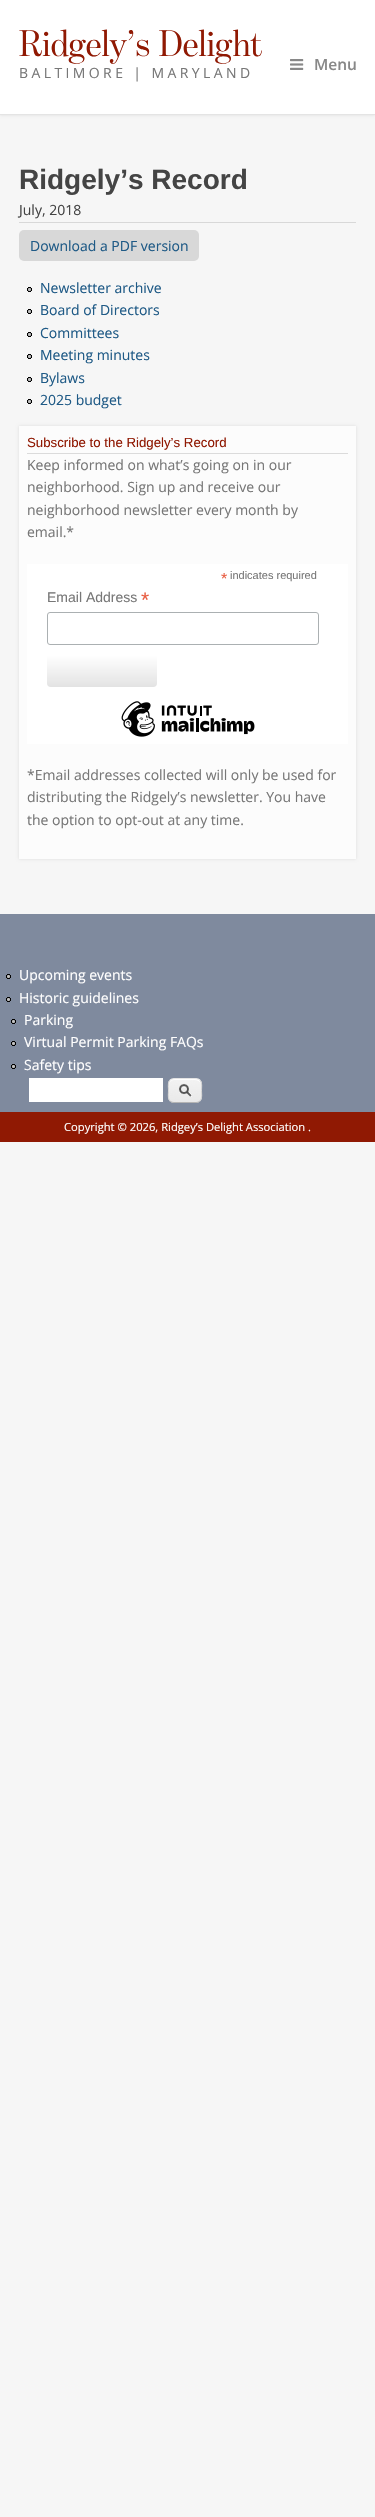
#include "include/core/SkBlurTypes.h"
#include "include/core/SkCanvas.h"
#include "include/core/SkData.h"
#include "include/core/SkFont.h"
#include "include/core/SkFontMgr.h"
#include "include/core/SkImage.h"
#include "include/core/SkMaskFilter.h"
#include "include/core/SkPaint.h"
#include "include/core/SkPathBuilder.h"
#include "include/core/SkTextBlob.h"
#include "include/effects/SkDashPathEffect.h"
#include "include/effects/SkGradientShader.h"
#include "include/utils/SkParsePath.h"

extern sk_sp<SkFontMgr> fontMgr;

void draw(SkCanvas* canvas) {
  SkPaint p;
  p.setAntiAlias(true);
  auto spacedText = [&](const char* s, float x, float y, const SkFont& font, const SkPaint& ink, float letter, float word) {
    std::vector<SkGlyphID> glyphs(font.countText(s, strlen(s), SkTextEncoding::kUTF8));
    std::vector<float> xs(glyphs.size());
    font.textToGlyphs(s, strlen(s), SkTextEncoding::kUTF8, glyphs);
    font.getXPos(glyphs, xs, x);
    float extra = 0;
    for (size_t i = 0; i < glyphs.size(); i++) {
      xs[i] += extra;
      extra += letter + word * (glyphs[i] == font.unicharToGlyph(' '));
    }
    canvas->drawTextBlob(SkTextBlob::MakeFromPosHGlyphs(glyphs, xs, y, font), 0, 0, ink);
  };
  canvas->clear(SkColorSetRGB(246, 246, 246));
  p.setColor(SkColorSetARGB(26, 0, 0, 0));
  p.setMaskFilter(SkMaskFilter::MakeBlur(kNormal_SkBlurStyle, 1.5f));
  canvas->drawRect(SkRect::MakeLTRB(0, 0, 375, 115), p);
  p.setMaskFilter(nullptr);
  p.setColor(SK_ColorWHITE);
  canvas->drawRect(SkRect::MakeLTRB(0, 0, 375, 114), p);
  p.setColor(SkColorSetRGB(228, 228, 228));
  canvas->drawRect(SkRect::MakeLTRB(0, 114, 375, 115), p);
  canvas->drawImageRect(SkImages::DeferredFromEncodedData(SkData::MakeFromFileName("images/1.png")), SkRect::MakeLTRB(290, 59, 304, 70), SkSamplingOptions());
  p.setColor(SkColorSetRGB(216, 216, 216));
  canvas->drawRect(SkRect::MakeLTRB(19, 222, 356, 223), p);
  canvas->drawRoundRect(SkRect::MakeLTRB(19, 230, 199, 261), 5, 5, p);
  canvas->drawImageRect(SkImages::DeferredFromEncodedData(SkData::MakeFromFileName("images/2.png")), SkRect::MakeLTRB(27, 287, 32, 292), SkSamplingOptions());
  canvas->drawImageRect(SkImages::DeferredFromEncodedData(SkData::MakeFromFileName("images/2.png")), SkRect::MakeLTRB(27, 309, 32, 314), SkSamplingOptions());
  canvas->drawImageRect(SkImages::DeferredFromEncodedData(SkData::MakeFromFileName("images/2.png")), SkRect::MakeLTRB(27, 332, 32, 337), SkSamplingOptions());
  canvas->drawImageRect(SkImages::DeferredFromEncodedData(SkData::MakeFromFileName("images/2.png")), SkRect::MakeLTRB(27, 354, 32, 359), SkSamplingOptions());
  canvas->drawImageRect(SkImages::DeferredFromEncodedData(SkData::MakeFromFileName("images/2.png")), SkRect::MakeLTRB(27, 377, 32, 382), SkSamplingOptions());
  canvas->drawImageRect(SkImages::DeferredFromEncodedData(SkData::MakeFromFileName("images/2.png")), SkRect::MakeLTRB(27, 399, 32, 404), SkSamplingOptions());
  p.setColor(SkColorSetARGB(26, 0, 0, 0));
  p.setMaskFilter(SkMaskFilter::MakeBlur(kNormal_SkBlurStyle, 1.5f));
  canvas->drawRect(SkRect::MakeLTRB(19, 426, 356, 859), p);
  p.setMaskFilter(nullptr);
  p.setColor(SkColorSetRGB(252, 252, 252));
  canvas->drawRect(SkRect::MakeLTRB(19, 426, 356, 859), p);
  p.setColor(SkColorSetRGB(219, 219, 219));
  canvas->drawRect(SkRect::MakeLTRB(27, 453, 348, 454), p);
  p.setColor(SK_ColorWHITE);
  canvas->drawRect(SkRect::MakeLTRB(27, 564, 348, 744), p);
  p.setStyle(SkPaint::kStroke_Style);
  p.setStrokeWidth(1);
  p.setColor(SkColorSetRGB(171, 176, 178));
  canvas->drawRoundRect(SkRect::MakeLTRB(47.5f, 612.5f, 318.5f, 644.5f), 2.5f, 2.5f, p);
  p.setStyle(SkPaint::kFill_Style);
  {
    const SkColor colors[] = {SK_ColorWHITE, SkColorSetRGB(227, 227, 227)};
    const float stops[] = {0, 1};
    const SkPoint ends[] = {{102, 655}, {102, 687}};
    p.setShader(SkGradientShader::MakeLinear(ends, colors, stops, 2, SkTileMode::kClamp));
    p.setAlpha(255);
  }
  canvas->drawRoundRect(SkRect::MakeLTRB(47, 655, 157, 687), 4, 4, p);
  canvas->drawImageRect(SkImages::DeferredFromEncodedData(SkData::MakeFromFileName("images/3.png")), SkRect::MakeLTRB(121, 701, 255, 737), SkSamplingOptions());
  p.setShader(nullptr);
  p.setColor(SkColorSetRGB(127, 138, 158));
  canvas->drawRect(SkRect::MakeLTRB(0, 914, 375, 1112), p);
  canvas->drawImageRect(SkImages::DeferredFromEncodedData(SkData::MakeFromFileName("images/4.png")), SkRect::MakeLTRB(6, 974, 11, 979), SkSamplingOptions());
  canvas->drawImageRect(SkImages::DeferredFromEncodedData(SkData::MakeFromFileName("images/4.png")), SkRect::MakeLTRB(6, 997, 11, 1002), SkSamplingOptions());
  canvas->drawImageRect(SkImages::DeferredFromEncodedData(SkData::MakeFromFileName("images/4.png")), SkRect::MakeLTRB(11, 1019, 16, 1024), SkSamplingOptions());
  canvas->drawImageRect(SkImages::DeferredFromEncodedData(SkData::MakeFromFileName("images/4.png")), SkRect::MakeLTRB(11, 1041, 16, 1046), SkSamplingOptions());
  canvas->drawImageRect(SkImages::DeferredFromEncodedData(SkData::MakeFromFileName("images/4.png")), SkRect::MakeLTRB(11, 1064, 16, 1069), SkSamplingOptions());
  p.setColor(SK_ColorWHITE);
  canvas->drawRect(SkRect::MakeLTRB(29, 1078, 163, 1102), p);
  canvas->drawImageRect(SkImages::DeferredFromEncodedData(SkData::MakeFromFileName("images/5.png")), SkRect::MakeLTRB(168, 1079, 202, 1103), SkSamplingOptions());
  canvas->drawPath(SkPathBuilder().moveTo(174, 1080).lineTo(192, 1080).cubicTo(199.5f, 1080, 201, 1081.5f, 201, 1086.5f).cubicTo(201, 1079.5f, 199, 1079, 192.5f, 1079).lineTo(177.5f, 1079).cubicTo(171, 1079, 169, 1079.5f, 169, 1086.5f).cubicTo(169, 1083, 170, 1080, 174, 1080).close().detach(), p);
  p.setStyle(SkPaint::kStroke_Style);
  p.setColor(SkColorSetRGB(228, 228, 228));
  canvas->drawPath(SkPathBuilder().moveTo(170, 1080).cubicTo(171, 1079, 172.5f, 1078.5f, 174, 1078.5f).lineTo(196, 1078.5f).cubicTo(197.5f, 1078.5f, 199, 1079, 200, 1080).detach(), p);
  p.setColor(SkColorSetRGB(210, 210, 210));
  canvas->drawPath(SkPathBuilder().moveTo(200, 1080).cubicTo(202.5f, 1082.5f, 201.5f, 1087.5f, 201.5f, 1090.5f).cubicTo(201.5f, 1093.5f, 202.5f, 1098.5f, 200, 1101).detach(), p);
  p.setColor(SkColorSetRGB(180, 180, 180));
  canvas->drawPath(SkPathBuilder().moveTo(200, 1101).cubicTo(199, 1102, 197.5f, 1102.5f, 196, 1102.5f).lineTo(174, 1102.5f).cubicTo(172.5f, 1102.5f, 171, 1102, 170, 1101).detach(), p);
  p.setColor(SkColorSetRGB(210, 210, 210));
  canvas->drawPath(SkPathBuilder().moveTo(170, 1101).cubicTo(167.5f, 1098.5f, 168.5f, 1093.5f, 168.5f, 1090.5f).cubicTo(168.5f, 1087.5f, 167.5f, 1082.5f, 170, 1080).detach(), p);
  p.setStyle(SkPaint::kFill_Style);
  p.setColor(SkColorSetRGB(144, 25, 3));
  canvas->drawRect(SkRect::MakeLTRB(0, 1112, 375, 1142), p);
  SkFont font1(fontMgr->matchFamilyStyle("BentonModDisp", SkFontStyle::Normal()), 37.75f);
  font1.setSubpixel(true);
  canvas->drawString("Ridgely’s Delight", 19, 56, font1, p);
  SkFont font2(fontMgr->matchFamilyStyle("Open Sans", SkFontStyle::Normal()), 14);
  font2.setSubpixel(true);
  p.setColor(SkColorSetRGB(119, 119, 119));
  spacedText("BALTIMORE | MARYLAND", 19, 78, font2, p, 3.4f, 0);
  SkFont font3(fontMgr->matchFamilyStyle("Open Sans", SkFontStyle(600, SkFontStyle::kNormal_Width, SkFontStyle::kUpright_Slant)), 15.5f);
  font3.setSubpixel(true);
  p.setColor(SkColorSetRGB(136, 136, 136));
  canvas->drawString("Menu", 314, 70, font3, p);
  SkFont font4(fontMgr->matchFamilyStyle("Liberation Sans", SkFontStyle::Bold()), 28);
  font4.setSubpixel(true);
  p.setColor(SkColorSetRGB(68, 68, 68));
  canvas->drawString("Ridgely’s Record", 19, 189, font4, p);
  canvas->drawString("July, 2018", 19, 215, font2, p);
  p.setColor(SkColorSetRGB(31, 90, 134));
  canvas->drawString("Download a PDF version", 30, 251, font2, p);
  canvas->drawString("Newsletter archive", 40, 293, font2, p);
  canvas->drawString("Board of Directors", 40, 315, font2, p);
  canvas->drawString("Committees", 40, 338, font2, p);
  canvas->drawString("Meeting minutes", 40, 360, font2, p);
  canvas->drawString("Bylaws", 40, 383, font2, p);
  canvas->drawString("2025 budget", 40, 405, font2, p);
  SkFont font5(fontMgr->matchFamilyStyle("Liberation Sans", SkFontStyle::Normal()), 13.25f);
  font5.setSubpixel(true);
  p.setColor(SkColorSetRGB(144, 25, 3));
  canvas->drawString("Subscribe to the Ridgely’s Record", 27, 447, font5, p);
  p.setColor(SkColorSetRGB(119, 119, 119));
  canvas->drawString("Keep informed on what’s going on in our", 27, 470, font2, p);
  canvas->drawString("neighborhood. Sign up and receive our", 27, 492, font2, p);
  canvas->drawString("neighborhood newsletter every month by", 27, 515, font2, p);
  canvas->drawString("email.*", 27, 537, font2, p);
  SkFont font6(fontMgr->matchFamilyStyle("Liberation Sans", SkFontStyle::Normal()), 16);
  font6.setSubpixel(true);
  p.setColor(SkColorSetRGB(232, 92, 65));
  canvas->drawString("*", 221, 584, font6, p);
  SkFont font7(fontMgr->matchFamilyStyle("Liberation Sans", SkFontStyle::Normal()), 11);
  font7.setSubpixel(true);
  p.setColor(SkColorSetRGB(119, 119, 119));
  canvas->drawString("indicates required", 230, 579, font7, p);
  SkFont font8(fontMgr->matchFamilyStyle("Liberation Sans", SkFontStyle::Normal()), 14);
  font8.setSubpixel(true);
  canvas->drawString("Email Address", 47, 602, font8, p);
  SkFont font9(fontMgr->matchFamilyStyle("Liberation Sans", SkFontStyle::Normal()), 21);
  font9.setSubpixel(true);
  p.setColor(SkColorSetRGB(232, 92, 65));
  canvas->drawString("*", 141, 607, font9, p);
  p.setColor(SkColorSetRGB(119, 119, 119));
  canvas->drawString("*Email addresses collected will only be used for", 27, 780, font2, p);
  canvas->drawString("distributing the Ridgely’s newsletter. You have", 27, 802, font2, p);
  canvas->drawString("the option to opt-out at any time.", 27, 825, font2, p);
  p.setColor(SK_ColorWHITE);
  canvas->drawString("Upcoming events", 19, 980, font2, p);
  canvas->drawString("Historic guidelines", 19, 1003, font2, p);
  canvas->drawString("Parking", 24, 1025, font2, p);
  canvas->drawString("Virtual Permit Parking FAQs", 24, 1047, font2, p);
  canvas->drawString("Safety tips", 24, 1070, font2, p);
  SkFont font10(fontMgr->matchFamilyStyle("Open Sans", SkFontStyle::Normal()), 11.2f);
  font10.setSubpixel(true);
  canvas->drawString("Copyright © 2026, Ridgey’s Delight Association .", 64, 1131, font10, p);
}
